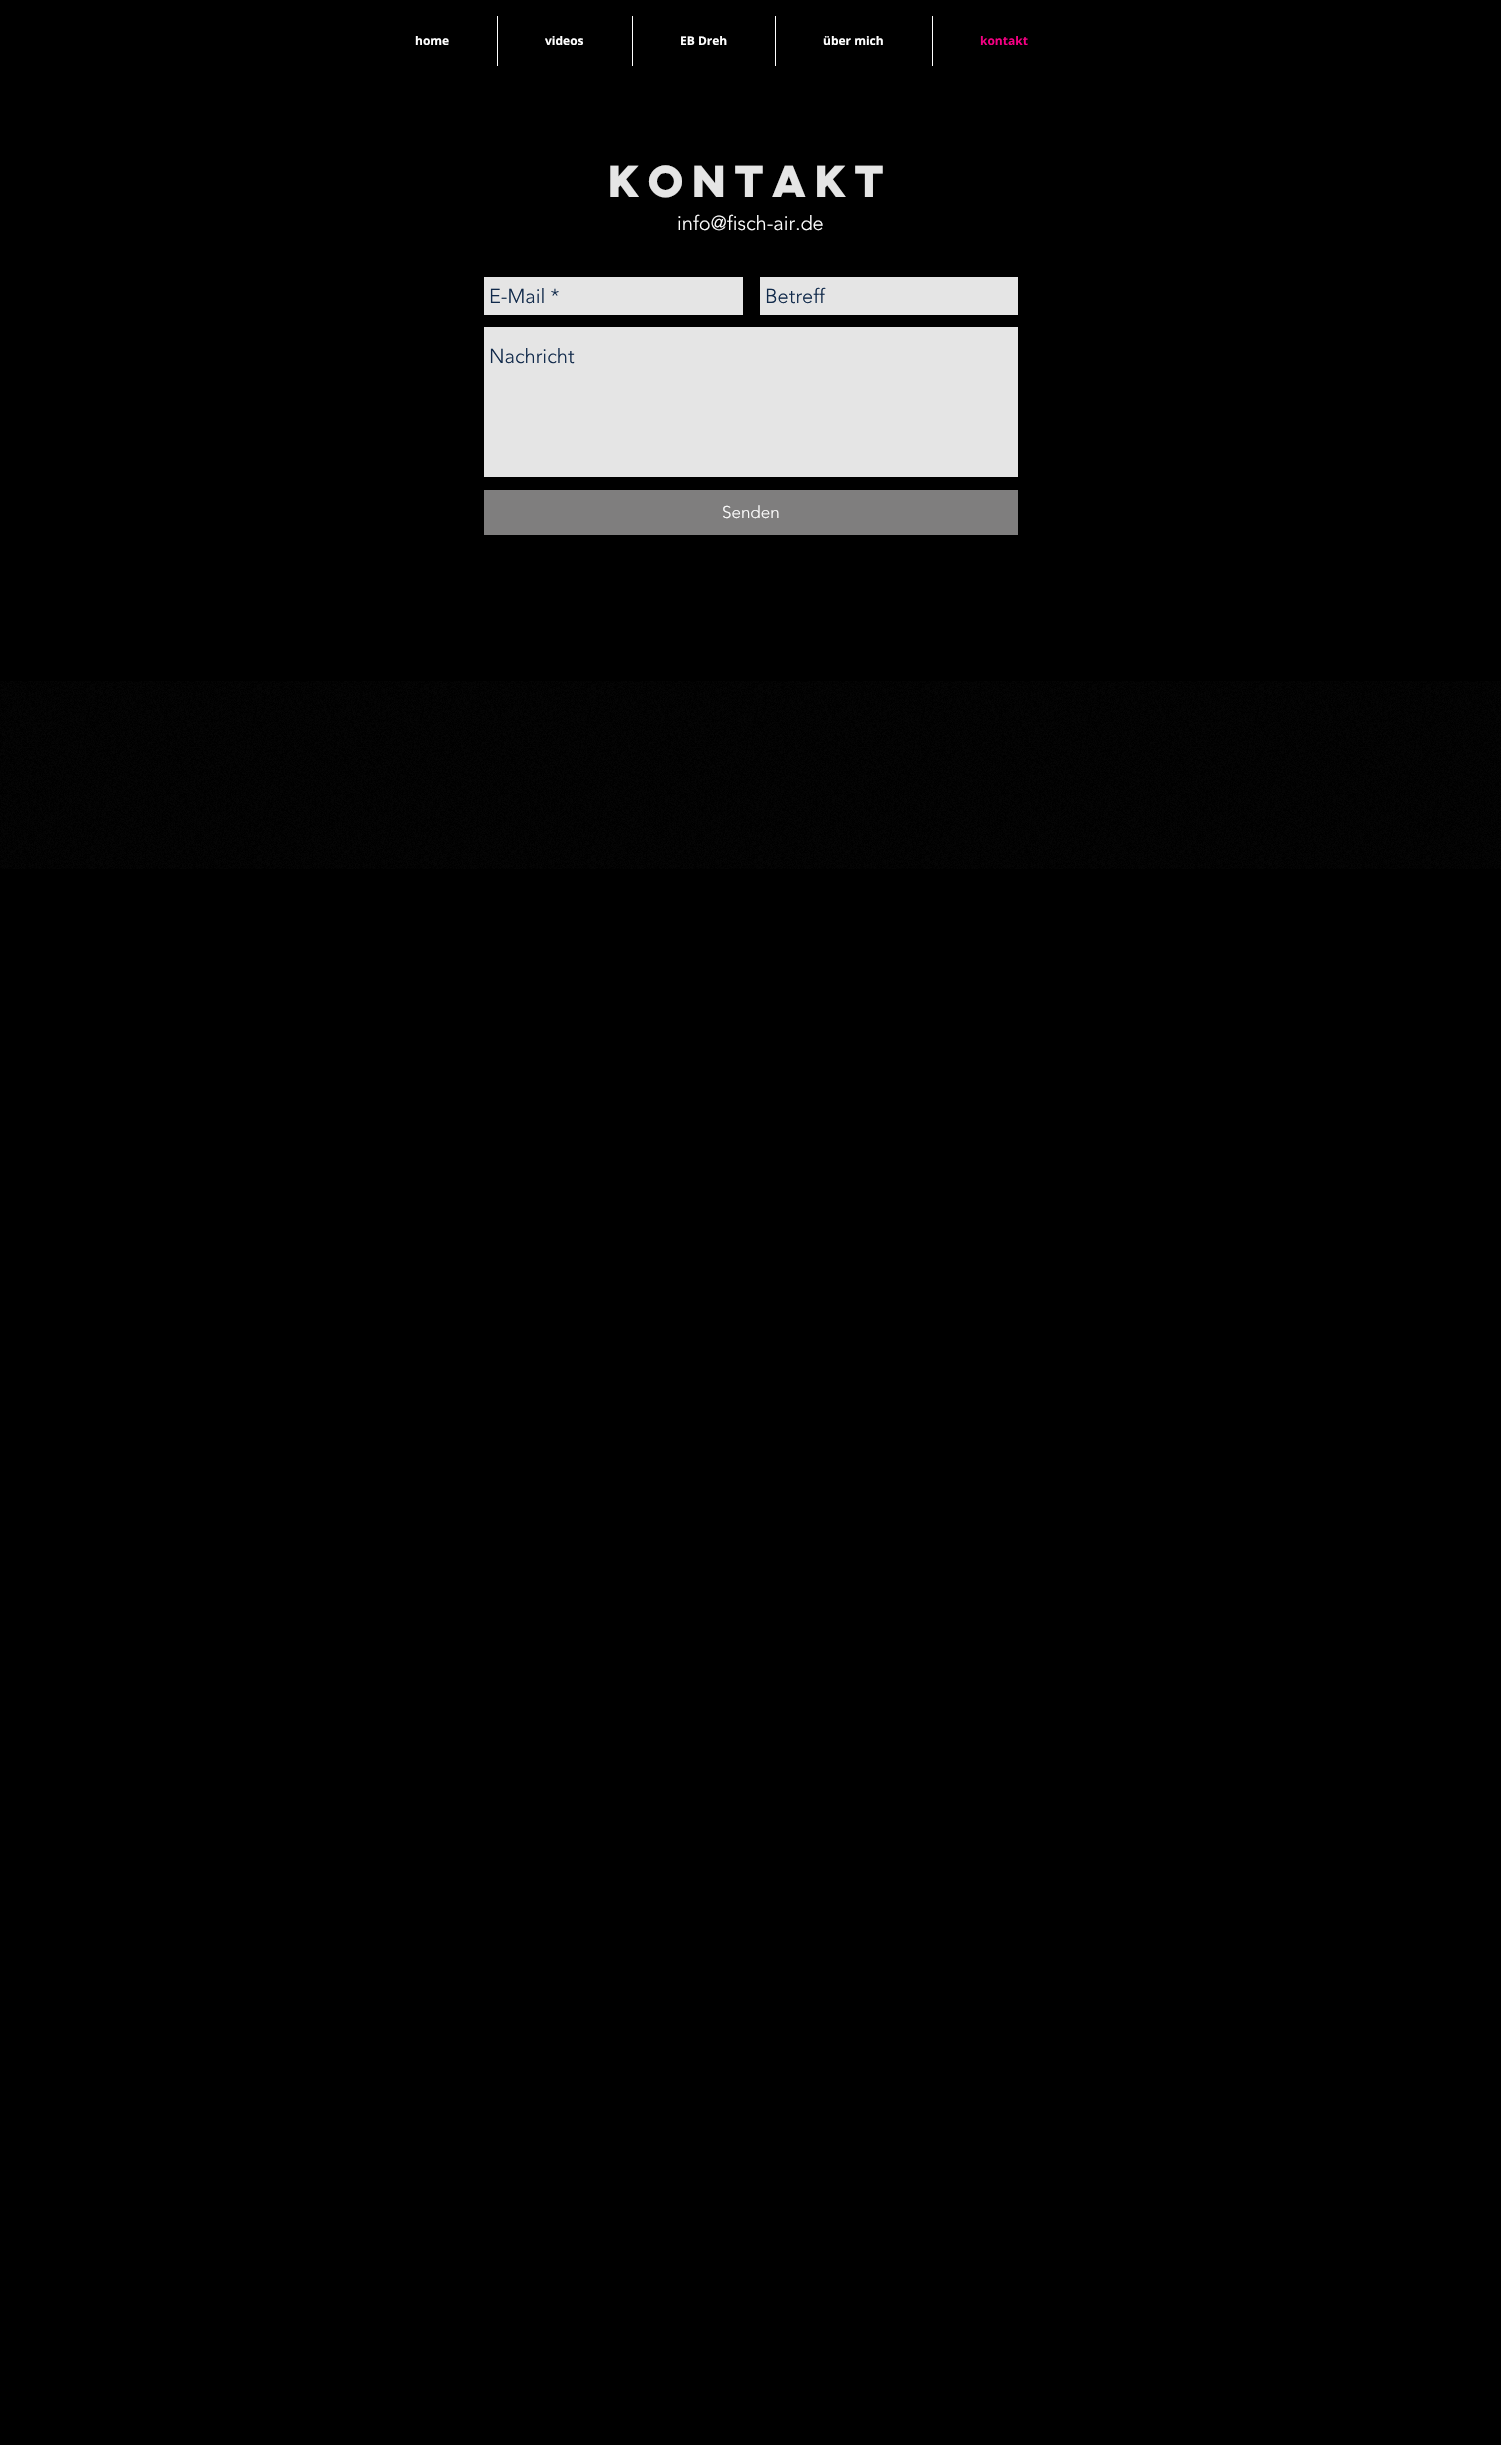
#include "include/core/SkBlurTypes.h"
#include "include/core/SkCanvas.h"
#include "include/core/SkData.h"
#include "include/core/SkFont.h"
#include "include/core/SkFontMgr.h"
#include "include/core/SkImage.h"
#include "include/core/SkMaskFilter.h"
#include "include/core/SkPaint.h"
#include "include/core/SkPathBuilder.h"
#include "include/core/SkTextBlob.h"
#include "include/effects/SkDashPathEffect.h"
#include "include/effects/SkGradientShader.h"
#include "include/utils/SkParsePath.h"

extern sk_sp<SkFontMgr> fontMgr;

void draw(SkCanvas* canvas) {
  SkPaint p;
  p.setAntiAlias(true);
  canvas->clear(SK_ColorBLACK);
  p.setColor(SK_ColorWHITE);
  canvas->drawRect(SkRect::MakeLTRB(497, 16, 498, 66), p);
  canvas->drawRect(SkRect::MakeLTRB(632, 16, 633, 66), p);
  canvas->drawRect(SkRect::MakeLTRB(775, 16, 776, 66), p);
  canvas->drawRect(SkRect::MakeLTRB(932, 16, 933, 66), p);
  p.setColor(SkColorSetRGB(229, 229, 229));
  canvas->drawRect(SkRect::MakeLTRB(484, 277, 743, 315), p);
  canvas->drawRect(SkRect::MakeLTRB(760, 277, 1018, 315), p);
  canvas->drawRect(SkRect::MakeLTRB(484, 327, 1018, 477), p);
  p.setColor(SkColorSetRGB(127, 126, 126));
  canvas->drawRect(SkRect::MakeLTRB(484, 490, 1018, 535), p);
  canvas->drawImageRect(SkImages::DeferredFromEncodedData(SkData::MakeFromFileName("images/1.png")), SkRect::MakeLTRB(0, 681, 1501, 869), SkSamplingOptions());
  SkFont font1(fontMgr->matchFamilyStyle("Open Sans", SkFontStyle::Bold()), 12);
  font1.setSubpixel(true);
  p.setColor(SK_ColorWHITE);
  canvas->drawString("home", 415, 45, font1, p);
  canvas->drawString("videos", 545, 45, font1, p);
  canvas->drawString("EB Dreh", 680, 45, font1, p);
  canvas->drawString("über mich", 823, 45, font1, p);
  p.setColor(SkColorSetRGB(245, 0, 131));
  canvas->drawString("kontakt", 980, 45, font1, p);
  SkFont font2(fontMgr->matchFamilyStyle("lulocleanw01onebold", SkFontStyle::Bold()), 40);
  font2.setSubpixel(true);
  p.setColor(SkColorSetRGB(229, 229, 229));
  canvas->drawString("Kontakt", 608, 197, font2, p);
  SkFont font3(fontMgr->matchFamilyStyle("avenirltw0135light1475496", SkFontStyle(300, SkFontStyle::kNormal_Width, SkFontStyle::kUpright_Slant)), 20);
  font3.setSubpixel(true);
  p.setColor(SK_ColorWHITE);
  canvas->drawString("info@fisch-air.de", 677, 230, font3, p);
  p.setColor(SkColorSetRGB(17, 42, 75));
  canvas->drawString("E-Mail *", 489, 303, font3, p);
  canvas->drawString("Betreff", 765, 303, font3, p);
  canvas->drawString("Nachricht", 489, 363, font3, p);
  SkFont font4(fontMgr->matchFamilyStyle("avenirltw0135light1475496", SkFontStyle(300, SkFontStyle::kNormal_Width, SkFontStyle::kUpright_Slant)), 17);
  font4.setSubpixel(true);
  p.setColor(SK_ColorWHITE);
  canvas->drawString("Senden", 722, 518, font4, p);
}
